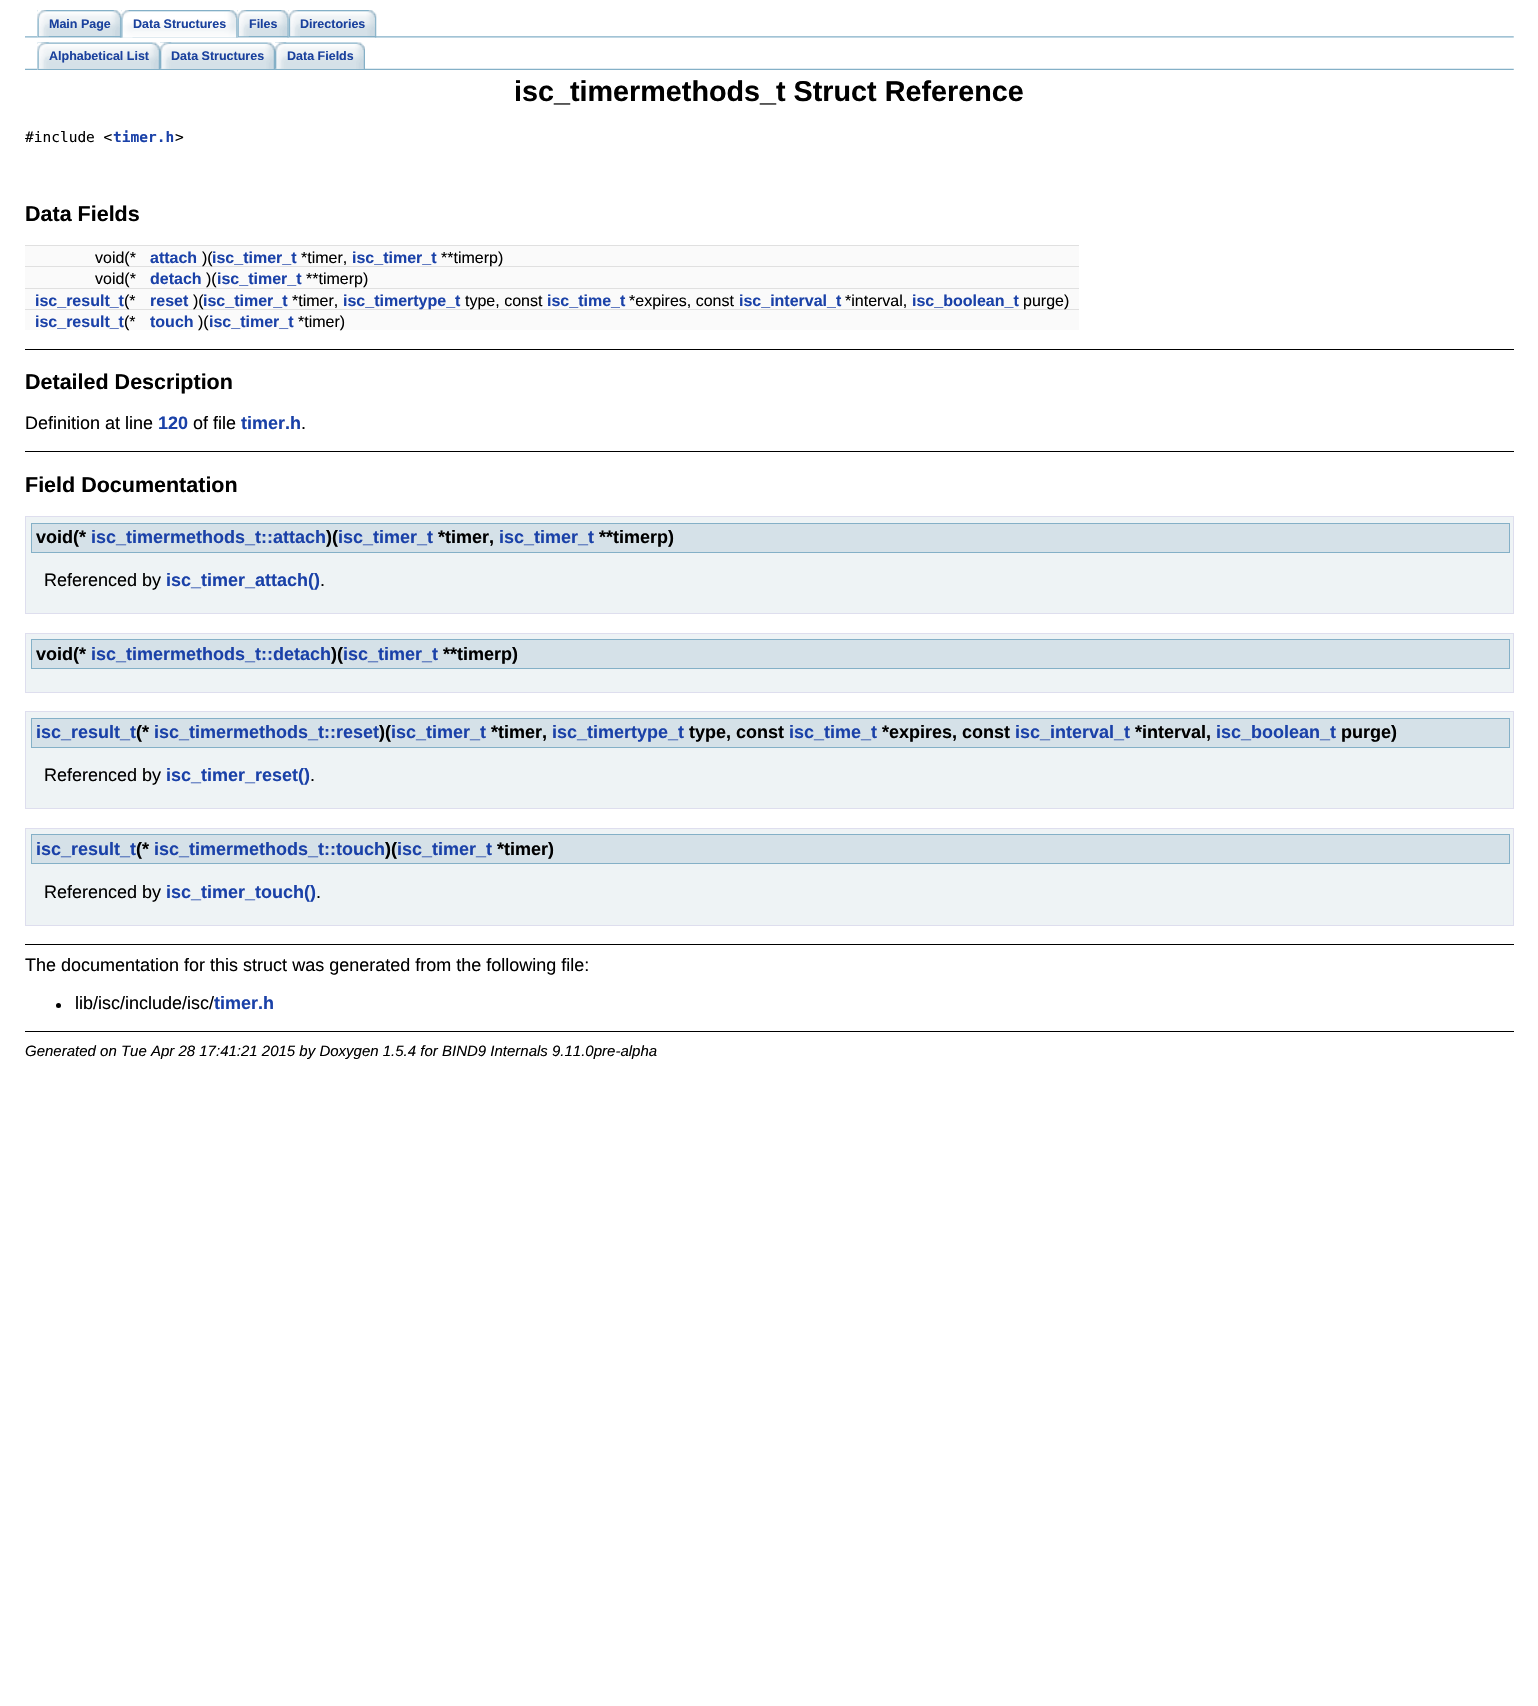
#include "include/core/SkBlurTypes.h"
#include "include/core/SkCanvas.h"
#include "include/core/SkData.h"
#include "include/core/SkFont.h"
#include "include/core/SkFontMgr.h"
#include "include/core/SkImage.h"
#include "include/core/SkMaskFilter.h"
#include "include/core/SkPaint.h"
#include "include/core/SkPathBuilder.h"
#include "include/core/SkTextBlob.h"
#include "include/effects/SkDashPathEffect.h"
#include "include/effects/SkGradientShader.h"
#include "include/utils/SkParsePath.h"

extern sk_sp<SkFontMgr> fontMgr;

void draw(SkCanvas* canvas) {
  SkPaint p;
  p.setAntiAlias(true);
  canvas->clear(SK_ColorWHITE);
  canvas->drawImageRect(SkImages::DeferredFromEncodedData(SkData::MakeFromFileName("images/1.png")), SkRect::MakeLTRB(25, 36, 1514, 38), SkSamplingOptions());
  canvas->drawImageRect(SkImages::DeferredFromEncodedData(SkData::MakeFromFileName("images/2.png")), SkRect::MakeLTRB(37, 10, 122, 38), SkSamplingOptions());
  p.setColor(SkColorSetRGB(132, 176, 199));
  canvas->drawRect(SkRect::MakeLTRB(38, 36, 121, 37), p);
  canvas->drawImageRect(SkImages::DeferredFromEncodedData(SkData::MakeFromFileName("images/3.png")), SkRect::MakeLTRB(37, 10, 49, 37), SkSamplingOptions());
  canvas->drawImageRect(SkImages::DeferredFromEncodedData(SkData::MakeFromFileName("images/4.png")), SkRect::MakeLTRB(121, 10, 238, 38), SkSamplingOptions());
  canvas->drawImageRect(SkImages::DeferredFromEncodedData(SkData::MakeFromFileName("images/5.png")), SkRect::MakeLTRB(121, 10, 133, 38), SkSamplingOptions());
  canvas->drawImageRect(SkImages::DeferredFromEncodedData(SkData::MakeFromFileName("images/6.png")), SkRect::MakeLTRB(237, 10, 289, 38), SkSamplingOptions());
  canvas->drawRect(SkRect::MakeLTRB(238, 36, 289, 37), p);
  canvas->drawImageRect(SkImages::DeferredFromEncodedData(SkData::MakeFromFileName("images/7.png")), SkRect::MakeLTRB(237, 10, 249, 37), SkSamplingOptions());
  canvas->drawImageRect(SkImages::DeferredFromEncodedData(SkData::MakeFromFileName("images/8.png")), SkRect::MakeLTRB(288, 10, 377, 38), SkSamplingOptions());
  canvas->drawRect(SkRect::MakeLTRB(289, 36, 376, 37), p);
  canvas->drawImageRect(SkImages::DeferredFromEncodedData(SkData::MakeFromFileName("images/9.png")), SkRect::MakeLTRB(288, 10, 300, 37), SkSamplingOptions());
  canvas->drawImageRect(SkImages::DeferredFromEncodedData(SkData::MakeFromFileName("images/10.png")), SkRect::MakeLTRB(25, 68, 1514, 70), SkSamplingOptions());
  canvas->drawImageRect(SkImages::DeferredFromEncodedData(SkData::MakeFromFileName("images/11.png")), SkRect::MakeLTRB(37, 42, 160, 70), SkSamplingOptions());
  canvas->drawRect(SkRect::MakeLTRB(38, 69, 160, 70), p);
  canvas->drawImageRect(SkImages::DeferredFromEncodedData(SkData::MakeFromFileName("images/12.png")), SkRect::MakeLTRB(37, 42, 49, 69), SkSamplingOptions());
  canvas->drawImageRect(SkImages::DeferredFromEncodedData(SkData::MakeFromFileName("images/13.png")), SkRect::MakeLTRB(160, 42, 275, 69), SkSamplingOptions());
  canvas->drawImageRect(SkImages::DeferredFromEncodedData(SkData::MakeFromFileName("images/14.png")), SkRect::MakeLTRB(160, 42, 172, 69), SkSamplingOptions());
  canvas->drawImageRect(SkImages::DeferredFromEncodedData(SkData::MakeFromFileName("images/15.png")), SkRect::MakeLTRB(275, 42, 365, 69), SkSamplingOptions());
  canvas->drawImageRect(SkImages::DeferredFromEncodedData(SkData::MakeFromFileName("images/16.png")), SkRect::MakeLTRB(275, 42, 287, 69), SkSamplingOptions());
  p.setColor(SkColorSetRGB(250, 250, 250));
  canvas->drawRect(SkRect::MakeLTRB(25, 246, 1079, 266), p);
  p.setColor(SkColorSetRGB(224, 224, 224));
  canvas->drawRect(SkRect::MakeLTRB(25, 245, 1079, 246), p);
  p.setColor(SkColorSetRGB(250, 250, 250));
  canvas->drawRect(SkRect::MakeLTRB(25, 267, 1079, 288), p);
  p.setColor(SkColorSetRGB(224, 224, 224));
  canvas->drawRect(SkRect::MakeLTRB(25, 266, 1079, 267), p);
  p.setColor(SkColorSetRGB(250, 250, 250));
  canvas->drawRect(SkRect::MakeLTRB(25, 289, 1079, 309), p);
  p.setColor(SkColorSetRGB(224, 224, 224));
  canvas->drawRect(SkRect::MakeLTRB(25, 288, 1079, 289), p);
  p.setColor(SkColorSetRGB(250, 250, 250));
  canvas->drawRect(SkRect::MakeLTRB(25, 310, 1079, 330), p);
  p.setColor(SkColorSetRGB(224, 224, 224));
  canvas->drawRect(SkRect::MakeLTRB(25, 309, 1079, 310), p);
  p.setColor(SK_ColorBLACK);
  canvas->drawRect(SkRect::MakeLTRB(25, 349, 1514, 350), p);
  canvas->drawRect(SkRect::MakeLTRB(25, 451, 1514, 452), p);
  p.setColor(SkColorSetRGB(238, 243, 245));
  canvas->drawRect(SkRect::MakeLTRB(25.5f, 516.5f, 1513.5f, 613.5f), p);
  p.setStyle(SkPaint::kStroke_Style);
  p.setStrokeWidth(1);
  p.setColor(SkColorSetRGB(222, 222, 238));
  canvas->drawRect(SkRect::MakeLTRB(25.5f, 516.5f, 1513.5f, 613.5f), p);
  p.setStyle(SkPaint::kFill_Style);
  p.setColor(SkColorSetRGB(213, 225, 232));
  canvas->drawRect(SkRect::MakeLTRB(31.5f, 523.5f, 1509.5f, 552.5f), p);
  p.setStyle(SkPaint::kStroke_Style);
  p.setColor(SkColorSetRGB(132, 176, 199));
  canvas->drawRect(SkRect::MakeLTRB(31.5f, 523.5f, 1509.5f, 552.5f), p);
  p.setStyle(SkPaint::kFill_Style);
  p.setColor(SkColorSetRGB(238, 243, 245));
  canvas->drawRect(SkRect::MakeLTRB(25.5f, 633.5f, 1513.5f, 692.5f), p);
  p.setStyle(SkPaint::kStroke_Style);
  p.setColor(SkColorSetRGB(222, 222, 238));
  canvas->drawRect(SkRect::MakeLTRB(25.5f, 633.5f, 1513.5f, 692.5f), p);
  p.setStyle(SkPaint::kFill_Style);
  p.setColor(SkColorSetRGB(213, 225, 232));
  canvas->drawRect(SkRect::MakeLTRB(31.5f, 639.5f, 1509.5f, 668.5f), p);
  p.setStyle(SkPaint::kStroke_Style);
  p.setColor(SkColorSetRGB(132, 176, 199));
  canvas->drawRect(SkRect::MakeLTRB(31.5f, 639.5f, 1509.5f, 668.5f), p);
  p.setStyle(SkPaint::kFill_Style);
  p.setColor(SkColorSetRGB(238, 243, 245));
  canvas->drawRect(SkRect::MakeLTRB(25.5f, 711.5f, 1513.5f, 808.5f), p);
  p.setStyle(SkPaint::kStroke_Style);
  p.setColor(SkColorSetRGB(222, 222, 238));
  canvas->drawRect(SkRect::MakeLTRB(25.5f, 711.5f, 1513.5f, 808.5f), p);
  p.setStyle(SkPaint::kFill_Style);
  p.setColor(SkColorSetRGB(213, 225, 232));
  canvas->drawRect(SkRect::MakeLTRB(31.5f, 718.5f, 1509.5f, 747.5f), p);
  p.setStyle(SkPaint::kStroke_Style);
  p.setColor(SkColorSetRGB(132, 176, 199));
  canvas->drawRect(SkRect::MakeLTRB(31.5f, 718.5f, 1509.5f, 747.5f), p);
  p.setStyle(SkPaint::kFill_Style);
  p.setColor(SkColorSetRGB(238, 243, 245));
  canvas->drawRect(SkRect::MakeLTRB(25.5f, 828.5f, 1513.5f, 925.5f), p);
  p.setStyle(SkPaint::kStroke_Style);
  p.setColor(SkColorSetRGB(222, 222, 238));
  canvas->drawRect(SkRect::MakeLTRB(25.5f, 828.5f, 1513.5f, 925.5f), p);
  p.setStyle(SkPaint::kFill_Style);
  p.setColor(SkColorSetRGB(213, 225, 232));
  canvas->drawRect(SkRect::MakeLTRB(31.5f, 834.5f, 1509.5f, 863.5f), p);
  p.setStyle(SkPaint::kStroke_Style);
  p.setColor(SkColorSetRGB(132, 176, 199));
  canvas->drawRect(SkRect::MakeLTRB(31.5f, 834.5f, 1509.5f, 863.5f), p);
  p.setStyle(SkPaint::kFill_Style);
  p.setColor(SK_ColorBLACK);
  canvas->drawRect(SkRect::MakeLTRB(25, 944, 1514, 945), p);
  canvas->drawCircle(58.5f, 1005.5f, 2.5f, p);
  canvas->drawRect(SkRect::MakeLTRB(25, 1031, 1514, 1032), p);
  SkFont font1(fontMgr->matchFamilyStyle("Liberation Sans", SkFontStyle::Bold()), 12.5f);
  font1.setSubpixel(true);
  p.setColor(SkColorSetRGB(26, 65, 157));
  canvas->drawString("Main Page", 49, 28, font1, p);
  canvas->drawString("Data Structures", 133, 28, font1, p);
  canvas->drawString("Files", 249, 28, font1, p);
  canvas->drawString("Directories", 300, 28, font1, p);
  canvas->drawString("Alphabetical List", 49, 60, font1, p);
  canvas->drawString("Data Structures", 171, 60, font1, p);
  canvas->drawString("Data Fields", 287, 60, font1, p);
  SkFont font2(fontMgr->matchFamilyStyle("Liberation Sans", SkFontStyle::Bold()), 28.75f);
  font2.setSubpixel(true);
  p.setColor(SK_ColorBLACK);
  canvas->drawString("isc_timermethods_t Struct Reference", 514, 101, font2, p);
  SkFont font3(fontMgr->matchFamilyStyle("DejaVu Sans Mono", SkFontStyle::Normal()), 14.5f);
  font3.setSubpixel(true);
  canvas->drawString("#include <", 25, 142, font3, p);
  SkFont font4(fontMgr->matchFamilyStyle("DejaVu Sans Mono", SkFontStyle::Bold()), 14.5f);
  font4.setSubpixel(true);
  p.setColor(SkColorSetRGB(26, 65, 168));
  canvas->drawString("timer.h", 113, 142, font4, p);
  p.setColor(SK_ColorBLACK);
  canvas->drawString(">", 175, 142, font3, p);
  SkFont font5(fontMgr->matchFamilyStyle("Liberation Sans", SkFontStyle::Bold()), 21.5f);
  font5.setSubpixel(true);
  canvas->drawString("Data Fields", 25, 221, font5, p);
  SkFont font6(fontMgr->matchFamilyStyle("Liberation Sans", SkFontStyle::Normal()), 16);
  font6.setSubpixel(true);
  canvas->drawString("void(*", 95, 263, font6, p);
  SkFont font7(fontMgr->matchFamilyStyle("Liberation Sans", SkFontStyle::Bold()), 16);
  font7.setSubpixel(true);
  p.setColor(SkColorSetRGB(26, 65, 168));
  canvas->drawString("attach", 150, 263, font7, p);
  p.setColor(SK_ColorBLACK);
  canvas->drawString(")(", 202, 263, font6, p);
  p.setColor(SkColorSetRGB(26, 65, 168));
  canvas->drawString("isc_timer_t", 212, 263, font7, p);
  p.setColor(SK_ColorBLACK);
  canvas->drawString("*timer,", 301, 263, font6, p);
  p.setColor(SkColorSetRGB(26, 65, 168));
  canvas->drawString("isc_timer_t", 352, 263, font7, p);
  p.setColor(SK_ColorBLACK);
  canvas->drawString("**timerp)", 441, 263, font6, p);
  canvas->drawString("void(*", 95, 284, font6, p);
  p.setColor(SkColorSetRGB(26, 65, 168));
  canvas->drawString("detach", 150, 284, font7, p);
  p.setColor(SK_ColorBLACK);
  canvas->drawString(")(", 206, 284, font6, p);
  p.setColor(SkColorSetRGB(26, 65, 168));
  canvas->drawString("isc_timer_t", 217, 284, font7, p);
  p.setColor(SK_ColorBLACK);
  canvas->drawString("**timerp)", 306, 284, font6, p);
  p.setColor(SkColorSetRGB(26, 65, 168));
  canvas->drawString("isc_result_t", 35, 306, font7, p);
  p.setColor(SK_ColorBLACK);
  canvas->drawString("(*", 124, 306, font6, p);
  p.setColor(SkColorSetRGB(26, 65, 168));
  canvas->drawString("reset", 150, 306, font7, p);
  p.setColor(SK_ColorBLACK);
  canvas->drawString(")(", 193, 306, font6, p);
  p.setColor(SkColorSetRGB(26, 65, 168));
  canvas->drawString("isc_timer_t", 203, 306, font7, p);
  p.setColor(SK_ColorBLACK);
  canvas->drawString("*timer,", 292, 306, font6, p);
  p.setColor(SkColorSetRGB(26, 65, 168));
  canvas->drawString("isc_timertype_t", 343, 306, font7, p);
  p.setColor(SK_ColorBLACK);
  canvas->drawString("type, const", 465, 306, font6, p);
  p.setColor(SkColorSetRGB(26, 65, 168));
  canvas->drawString("isc_time_t", 547, 306, font7, p);
  p.setColor(SK_ColorBLACK);
  canvas->drawString("*expires, const", 629, 306, font6, p);
  p.setColor(SkColorSetRGB(26, 65, 168));
  canvas->drawString("isc_interval_t", 739, 306, font7, p);
  p.setColor(SK_ColorBLACK);
  canvas->drawString("*interval,", 845, 306, font6, p);
  p.setColor(SkColorSetRGB(26, 65, 168));
  canvas->drawString("isc_boolean_t", 912, 306, font7, p);
  p.setColor(SK_ColorBLACK);
  canvas->drawString("purge)", 1023, 306, font6, p);
  p.setColor(SkColorSetRGB(26, 65, 168));
  canvas->drawString("isc_result_t", 35, 327, font7, p);
  p.setColor(SK_ColorBLACK);
  canvas->drawString("(*", 124, 327, font6, p);
  p.setColor(SkColorSetRGB(26, 65, 168));
  canvas->drawString("touch", 150, 327, font7, p);
  p.setColor(SK_ColorBLACK);
  canvas->drawString(")(", 198, 327, font6, p);
  p.setColor(SkColorSetRGB(26, 65, 168));
  canvas->drawString("isc_timer_t", 209, 327, font7, p);
  p.setColor(SK_ColorBLACK);
  canvas->drawString("*timer)", 298, 327, font6, p);
  canvas->drawString("Detailed Description", 25, 389, font5, p);
  SkFont font8(fontMgr->matchFamilyStyle("Liberation Sans", SkFontStyle::Normal()), 18);
  font8.setSubpixel(true);
  canvas->drawString("Definition at line", 25, 429, font8, p);
  SkFont font9(fontMgr->matchFamilyStyle("Liberation Sans", SkFontStyle::Bold()), 18);
  font9.setSubpixel(true);
  p.setColor(SkColorSetRGB(26, 65, 168));
  canvas->drawString("120", 158, 429, font9, p);
  p.setColor(SK_ColorBLACK);
  canvas->drawString("of file", 193, 429, font8, p);
  p.setColor(SkColorSetRGB(26, 65, 168));
  canvas->drawString("timer.h", 241, 429, font9, p);
  p.setColor(SK_ColorBLACK);
  canvas->drawString(".", 301, 429, font8, p);
  canvas->drawString("Field Documentation", 25, 492, font5, p);
  canvas->drawString("void(*", 36, 543, font9, p);
  p.setColor(SkColorSetRGB(26, 65, 168));
  canvas->drawString("isc_timermethods_t::attach", 91, 543, font9, p);
  p.setColor(SK_ColorBLACK);
  canvas->drawString(")(", 326, 543, font9, p);
  p.setColor(SkColorSetRGB(26, 65, 168));
  canvas->drawString("isc_timer_t", 338, 543, font9, p);
  p.setColor(SK_ColorBLACK);
  canvas->drawString("*timer,", 438, 543, font9, p);
  p.setColor(SkColorSetRGB(26, 65, 168));
  canvas->drawString("isc_timer_t", 499, 543, font9, p);
  p.setColor(SK_ColorBLACK);
  canvas->drawString("**timerp)", 599, 543, font9, p);
  canvas->drawString("Referenced by", 44, 586, font8, p);
  p.setColor(SkColorSetRGB(26, 65, 168));
  canvas->drawString("isc_timer_attach()", 166, 586, font9, p);
  p.setColor(SK_ColorBLACK);
  canvas->drawString(".", 320, 586, font8, p);
  canvas->drawString("void(*", 36, 660, font9, p);
  p.setColor(SkColorSetRGB(26, 65, 168));
  canvas->drawString("isc_timermethods_t::detach", 91, 660, font9, p);
  p.setColor(SK_ColorBLACK);
  canvas->drawString(")(", 331, 660, font9, p);
  p.setColor(SkColorSetRGB(26, 65, 168));
  canvas->drawString("isc_timer_t", 343, 660, font9, p);
  p.setColor(SK_ColorBLACK);
  canvas->drawString("**timerp)", 443, 660, font9, p);
  p.setColor(SkColorSetRGB(26, 65, 168));
  canvas->drawString("isc_result_t", 36, 738, font9, p);
  p.setColor(SK_ColorBLACK);
  canvas->drawString("(*", 136, 738, font9, p);
  p.setColor(SkColorSetRGB(26, 65, 168));
  canvas->drawString("isc_timermethods_t::reset", 154, 738, font9, p);
  p.setColor(SK_ColorBLACK);
  canvas->drawString(")(", 379, 738, font9, p);
  p.setColor(SkColorSetRGB(26, 65, 168));
  canvas->drawString("isc_timer_t", 391, 738, font9, p);
  p.setColor(SK_ColorBLACK);
  canvas->drawString("*timer,", 491, 738, font9, p);
  p.setColor(SkColorSetRGB(26, 65, 168));
  canvas->drawString("isc_timertype_t", 552, 738, font9, p);
  p.setColor(SK_ColorBLACK);
  canvas->drawString("type, const", 689, 738, font9, p);
  p.setColor(SkColorSetRGB(26, 65, 168));
  canvas->drawString("isc_time_t", 789, 738, font9, p);
  p.setColor(SK_ColorBLACK);
  canvas->drawString("*expires, const", 882, 738, font9, p);
  p.setColor(SkColorSetRGB(26, 65, 168));
  canvas->drawString("isc_interval_t", 1015, 738, font9, p);
  p.setColor(SK_ColorBLACK);
  canvas->drawString("*interval,", 1135, 738, font9, p);
  p.setColor(SkColorSetRGB(26, 65, 168));
  canvas->drawString("isc_boolean_t", 1216, 738, font9, p);
  p.setColor(SK_ColorBLACK);
  canvas->drawString("purge)", 1341, 738, font9, p);
  canvas->drawString("Referenced by", 44, 781, font8, p);
  p.setColor(SkColorSetRGB(26, 65, 168));
  canvas->drawString("isc_timer_reset()", 166, 781, font9, p);
  p.setColor(SK_ColorBLACK);
  canvas->drawString(".", 310, 781, font8, p);
  p.setColor(SkColorSetRGB(26, 65, 168));
  canvas->drawString("isc_result_t", 36, 855, font9, p);
  p.setColor(SK_ColorBLACK);
  canvas->drawString("(*", 136, 855, font9, p);
  p.setColor(SkColorSetRGB(26, 65, 168));
  canvas->drawString("isc_timermethods_t::touch", 154, 855, font9, p);
  p.setColor(SK_ColorBLACK);
  canvas->drawString(")(", 385, 855, font9, p);
  p.setColor(SkColorSetRGB(26, 65, 168));
  canvas->drawString("isc_timer_t", 397, 855, font9, p);
  p.setColor(SK_ColorBLACK);
  canvas->drawString("*timer)", 497, 855, font9, p);
  canvas->drawString("Referenced by", 44, 898, font8, p);
  p.setColor(SkColorSetRGB(26, 65, 168));
  canvas->drawString("isc_timer_touch()", 166, 898, font9, p);
  p.setColor(SK_ColorBLACK);
  canvas->drawString(".", 316, 898, font8, p);
  canvas->drawString("The documentation for this struct was generated from the following file:", 25, 971, font8, p);
  canvas->drawString("lib/isc/include/isc/", 75, 1009, font8, p);
  p.setColor(SkColorSetRGB(26, 65, 168));
  canvas->drawString("timer.h", 214, 1009, font9, p);
  SkFont font10(fontMgr->matchFamilyStyle("Liberation Sans", SkFontStyle::Italic()), 15);
  font10.setSubpixel(true);
  p.setColor(SK_ColorBLACK);
  canvas->drawString("Generated on Tue Apr 28 17:41:21 2015 by Doxygen 1.5.4 for BIND9 Internals 9.11.0pre-alpha", 25, 1056, font10, p);
}
